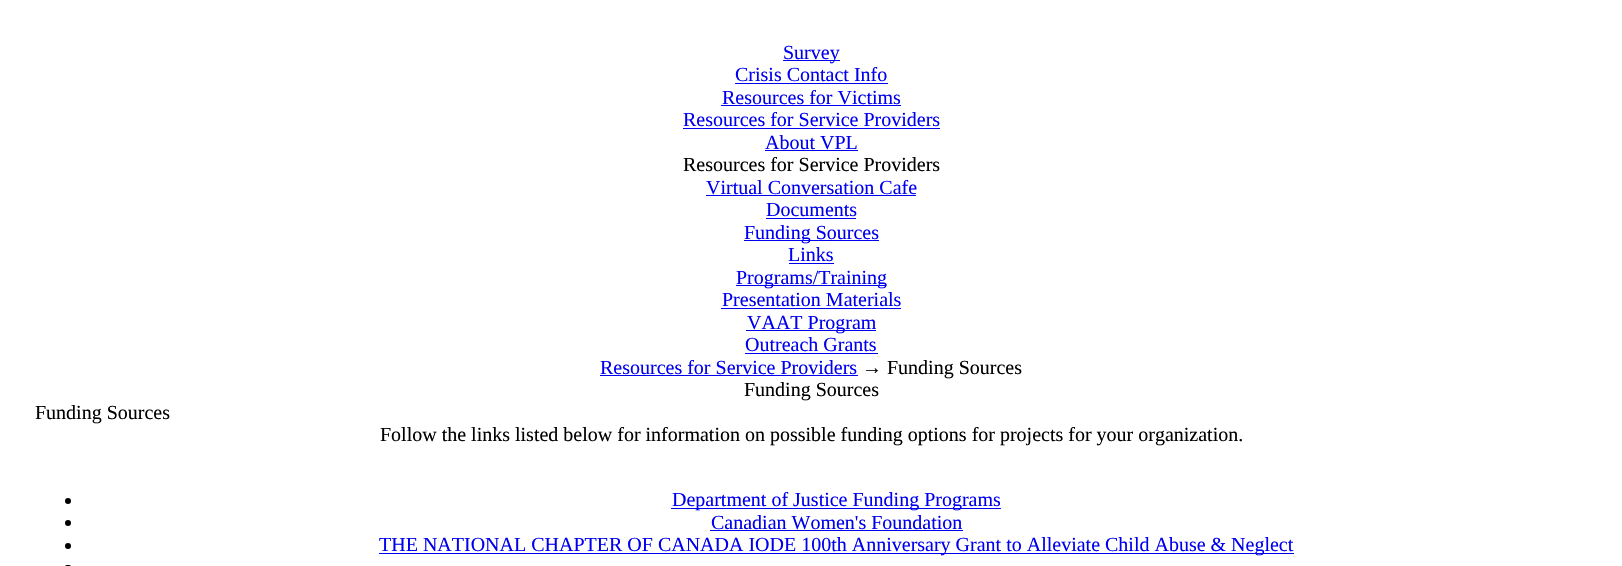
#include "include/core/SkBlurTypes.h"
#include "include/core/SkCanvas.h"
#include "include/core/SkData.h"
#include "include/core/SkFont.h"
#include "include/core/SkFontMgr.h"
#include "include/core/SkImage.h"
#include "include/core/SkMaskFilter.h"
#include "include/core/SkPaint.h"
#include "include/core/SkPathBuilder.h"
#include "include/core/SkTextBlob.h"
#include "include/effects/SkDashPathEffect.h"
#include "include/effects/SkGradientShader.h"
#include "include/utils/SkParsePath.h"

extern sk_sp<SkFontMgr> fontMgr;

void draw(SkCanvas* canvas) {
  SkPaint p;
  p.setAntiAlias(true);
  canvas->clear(SK_ColorWHITE);
  p.setColor(SkColorSetRGB(0, 0, 238));
  canvas->drawRect(SkRect::MakeLTRB(783, 60, 840, 61), p);
  canvas->drawRect(SkRect::MakeLTRB(735, 83, 888, 84), p);
  canvas->drawRect(SkRect::MakeLTRB(721, 105, 901, 106), p);
  canvas->drawRect(SkRect::MakeLTRB(683, 128, 940, 129), p);
  canvas->drawRect(SkRect::MakeLTRB(765, 150, 858, 151), p);
  canvas->drawRect(SkRect::MakeLTRB(706, 195, 916, 196), p);
  canvas->drawRect(SkRect::MakeLTRB(766, 218, 856, 219), p);
  canvas->drawRect(SkRect::MakeLTRB(744, 240, 879, 241), p);
  canvas->drawRect(SkRect::MakeLTRB(789, 263, 834, 264), p);
  canvas->drawRect(SkRect::MakeLTRB(736, 285, 886, 286), p);
  canvas->drawRect(SkRect::MakeLTRB(721, 308, 901, 309), p);
  canvas->drawRect(SkRect::MakeLTRB(746, 330, 876, 331), p);
  canvas->drawRect(SkRect::MakeLTRB(745, 353, 878, 354), p);
  canvas->drawRect(SkRect::MakeLTRB(600, 375, 858, 376), p);
  p.setColor(SK_ColorBLACK);
  canvas->drawCircle(68, 501, 3, p);
  p.setColor(SkColorSetRGB(0, 0, 238));
  canvas->drawRect(SkRect::MakeLTRB(671, 508, 1001, 509), p);
  p.setColor(SK_ColorBLACK);
  canvas->drawCircle(68, 523, 3, p);
  p.setColor(SkColorSetRGB(0, 0, 238));
  canvas->drawRect(SkRect::MakeLTRB(710, 530, 963, 531), p);
  p.setColor(SK_ColorBLACK);
  canvas->drawCircle(68, 546, 3, p);
  p.setColor(SkColorSetRGB(0, 0, 238));
  canvas->drawRect(SkRect::MakeLTRB(379, 553, 1294, 554), p);
  p.setColor(SK_ColorBLACK);
  canvas->drawRoundRect(SkRect::MakeLTRB(65, 565, 71, 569), 3, 3, p);
  SkFont font1(fontMgr->matchFamilyStyle("Liberation Serif", SkFontStyle::Normal()), 20);
  font1.setSubpixel(true);
  p.setColor(SkColorSetRGB(0, 0, 238));
  canvas->drawString("Survey", 783, 59, font1, p);
  canvas->drawString("Crisis Contact Info", 735, 81, font1, p);
  canvas->drawString("Resources for Victims", 722, 104, font1, p);
  canvas->drawString("Resources for Service Providers", 683, 126, font1, p);
  canvas->drawString("About VPL", 765, 149, font1, p);
  p.setColor(SK_ColorBLACK);
  canvas->drawString("Resources for Service Providers", 683, 171, font1, p);
  p.setColor(SkColorSetRGB(0, 0, 238));
  canvas->drawString("Virtual Conversation Cafe", 706, 194, font1, p);
  canvas->drawString("Documents", 766, 216, font1, p);
  canvas->drawString("Funding Sources", 744, 239, font1, p);
  canvas->drawString("Links", 788, 261, font1, p);
  canvas->drawString("Programs/Training", 736, 284, font1, p);
  canvas->drawString("Presentation Materials", 722, 306, font1, p);
  canvas->drawString("VAAT Program", 747, 329, font1, p);
  canvas->drawString("Outreach Grants", 745, 351, font1, p);
  canvas->drawString("Resources for Service Providers", 600, 374, font1, p);
  p.setColor(SK_ColorBLACK);
  canvas->drawString("→ Funding Sources", 862, 374, font1, p);
  canvas->drawString("Funding Sources", 744, 396, font1, p);
  canvas->drawString("Funding Sources", 35, 419, font1, p);
  canvas->drawString("Follow the links listed below for information on possible funding options for projects for your organization.", 380, 441, font1, p);
  p.setColor(SkColorSetRGB(0, 0, 238));
  canvas->drawString("Department of Justice Funding Programs", 672, 506, font1, p);
  canvas->drawString("Canadian Women's Foundation", 711, 529, font1, p);
  canvas->drawString("THE NATIONAL CHAPTER OF CANADA IODE 100th Anniversary Grant to Alleviate Child Abuse & Neglect", 379, 551, font1, p);
}
